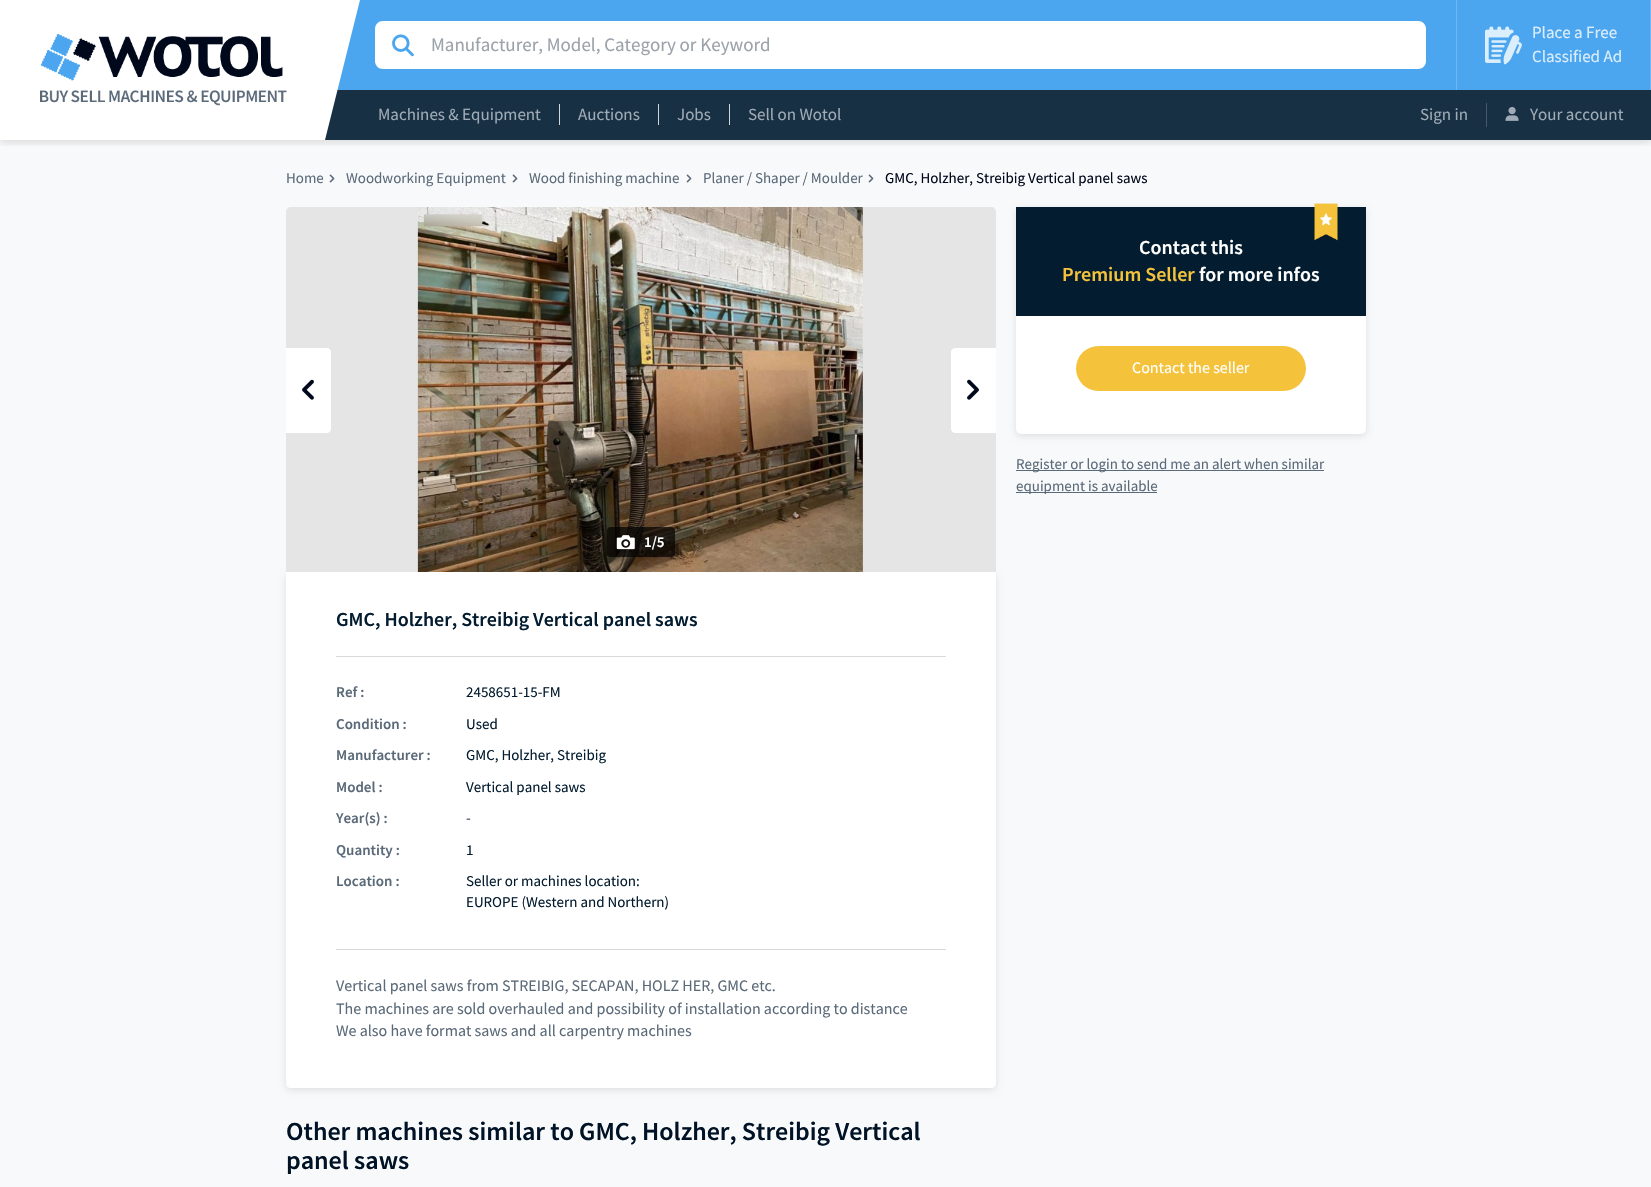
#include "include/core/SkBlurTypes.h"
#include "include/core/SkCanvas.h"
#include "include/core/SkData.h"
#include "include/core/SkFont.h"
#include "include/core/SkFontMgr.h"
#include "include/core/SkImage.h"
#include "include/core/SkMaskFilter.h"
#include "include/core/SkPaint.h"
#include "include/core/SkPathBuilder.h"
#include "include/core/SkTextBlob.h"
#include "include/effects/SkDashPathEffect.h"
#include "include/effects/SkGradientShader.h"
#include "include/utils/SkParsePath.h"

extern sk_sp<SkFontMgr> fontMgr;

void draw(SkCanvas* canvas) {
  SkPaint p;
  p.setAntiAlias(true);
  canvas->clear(SK_ColorWHITE);
  p.setColor(SkColorSetRGB(248, 249, 250));
  canvas->drawRect(SkRect::MakeLTRB(0, 140, 1651, 1187), p);
  canvas->save();
  canvas->clipRect(SkRect::MakeLTRB(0, 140, 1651, 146));
  p.setColor(SkColorSetARGB(28, 0, 0, 0));
  p.setMaskFilter(SkMaskFilter::MakeBlur(kNormal_SkBlurStyle, 3.5f));
  canvas->drawRect(SkRect::MakeLTRB(0, 3, 1651, 143), p);
  p.setMaskFilter(nullptr);
  canvas->restore();
  canvas->drawImageRect(SkImages::DeferredFromEncodedData(SkData::MakeFromFileName("images/1.png")), SkRect::MakeLTRB(40, 34, 287, 106), SkSamplingOptions());
  p.setColor(SkColorSetRGB(75, 166, 239));
  canvas->drawRect(SkRect::MakeLTRB(337, 0, 1650, 90), p);
  p.setColor(SkColorSetRGB(24, 48, 67));
  canvas->drawRect(SkRect::MakeLTRB(325, 90, 1651, 140), p);
  p.setColor(SK_ColorWHITE);
  canvas->drawPath(SkPathBuilder().moveTo(325, 0).lineTo(360, 0).lineTo(325, 140).close().detach(), p);
  canvas->drawPath(SkPathBuilder().moveTo(383, 21).lineTo(419, 21).lineTo(419, 69).lineTo(383, 69).cubicTo(378.5f, 69, 375, 65.5f, 375, 61).lineTo(375, 29).cubicTo(375, 24.5f, 378.5f, 21, 383, 21).close().detach(), p);
  canvas->drawImageRect(SkImages::DeferredFromEncodedData(SkData::MakeFromFileName("images/2.png")), SkRect::MakeLTRB(392, 34, 414, 57), SkSamplingOptions());
  canvas->drawPath(SkPathBuilder().moveTo(419, 21).lineTo(1418, 21).cubicTo(1422.5f, 21, 1426, 24.5f, 1426, 29).lineTo(1426, 61).cubicTo(1426, 65.5f, 1422.5f, 69, 1418, 69).lineTo(419, 69).close().detach(), p);
  p.setColor(SkColorSetRGB(111, 184, 242));
  canvas->drawRect(SkRect::MakeLTRB(1650, 0, 1651, 90), p);
  canvas->drawRect(SkRect::MakeLTRB(1456, 0, 1457, 90), p);
  canvas->drawImageRect(SkImages::DeferredFromEncodedData(SkData::MakeFromFileName("images/3.png")), SkRect::MakeLTRB(1485, 26, 1522, 65), SkSamplingOptions());
  p.setColor(SkColorSetRGB(209, 214, 217));
  canvas->drawRect(SkRect::MakeLTRB(559, 104, 560, 125), p);
  canvas->drawRect(SkRect::MakeLTRB(658, 104, 659, 125), p);
  canvas->drawRect(SkRect::MakeLTRB(729, 104, 730, 125), p);
  p.setColor(SkColorSetRGB(70, 89, 105));
  canvas->drawRect(SkRect::MakeLTRB(1486, 103, 1487, 127), p);
  canvas->drawImageRect(SkImages::DeferredFromEncodedData(SkData::MakeFromFileName("images/4.png")), SkRect::MakeLTRB(1505, 107, 1519, 121), SkSamplingOptions());
  canvas->drawImageRect(SkImages::DeferredFromEncodedData(SkData::MakeFromFileName("images/5.png")), SkRect::MakeLTRB(329, 174, 335, 183), SkSamplingOptions());
  canvas->drawImageRect(SkImages::DeferredFromEncodedData(SkData::MakeFromFileName("images/5.png")), SkRect::MakeLTRB(512, 174, 518, 183), SkSamplingOptions());
  canvas->drawImageRect(SkImages::DeferredFromEncodedData(SkData::MakeFromFileName("images/5.png")), SkRect::MakeLTRB(686, 174, 692, 183), SkSamplingOptions());
  canvas->drawImageRect(SkImages::DeferredFromEncodedData(SkData::MakeFromFileName("images/5.png")), SkRect::MakeLTRB(868, 174, 874, 183), SkSamplingOptions());
  p.setColor(SkColorSetARGB(26, 0, 0, 0));
  p.setMaskFilter(SkMaskFilter::MakeBlur(kNormal_SkBlurStyle, 3.5f));
  canvas->drawRoundRect(SkRect::MakeLTRB(1016, 209, 1366, 436), 5, 5, p);
  p.setMaskFilter(nullptr);
  p.setColor(SK_ColorWHITE);
  canvas->drawRoundRect(SkRect::MakeLTRB(1016, 207, 1366, 434), 5, 5, p);
  p.setColor(SkColorSetRGB(3, 28, 47));
  canvas->drawRect(SkRect::MakeLTRB(1016, 207, 1366, 316), p);
  canvas->drawImageRect(SkImages::DeferredFromEncodedData(SkData::MakeFromFileName("images/6.png")), SkRect::MakeLTRB(1313, 203, 1339, 241), SkSamplingOptions());
  p.setColor(SkColorSetRGB(244, 194, 59));
  canvas->drawRoundRect(SkRect::MakeLTRB(1076, 346, 1306, 391), 22.5f, 22.5f, p);
  p.setColor(SkColorSetRGB(91, 106, 121));
  canvas->drawRect(SkRect::MakeLTRB(1016, 470, 1324, 471), p);
  canvas->drawRect(SkRect::MakeLTRB(1016, 492, 1157, 493), p);
  p.setColor(SkColorSetARGB(26, 0, 0, 0));
  p.setMaskFilter(SkMaskFilter::MakeBlur(kNormal_SkBlurStyle, 3.5f));
  canvas->drawRoundRect(SkRect::MakeLTRB(286, 574, 996, 1090), 5, 5, p);
  p.setMaskFilter(nullptr);
  p.setColor(SkColorSetRGB(229, 229, 229));
  canvas->drawPath(SkPathBuilder().moveTo(291, 207).lineTo(991, 207).cubicTo(994, 207, 996, 209, 996, 212).lineTo(996, 572).lineTo(286, 572).lineTo(286, 212).cubicTo(286, 209, 288, 207, 291, 207).close().detach(), p);
  p.setColor(SK_ColorWHITE);
  canvas->drawPath(SkPathBuilder().moveTo(286, 348).lineTo(327, 348).cubicTo(329, 348, 331, 350, 331, 352).lineTo(331, 429).cubicTo(331, 431, 329, 433, 327, 433).lineTo(286, 433).close().detach(), p);
  canvas->drawImageRect(SkImages::DeferredFromEncodedData(SkData::MakeFromFileName("images/7.png")), SkRect::MakeLTRB(302, 379, 314, 400), SkSamplingOptions());
  canvas->drawPath(SkPathBuilder().moveTo(955, 348).lineTo(996, 348).lineTo(996, 433).lineTo(955, 433).cubicTo(953, 433, 951, 431, 951, 429).lineTo(951, 352).cubicTo(951, 350, 953, 348, 955, 348).close().detach(), p);
  canvas->drawImageRect(SkImages::DeferredFromEncodedData(SkData::MakeFromFileName("images/8.png")), SkRect::MakeLTRB(967, 379, 979, 400), SkSamplingOptions());
  canvas->drawImageRect(SkImages::DeferredFromEncodedData(SkData::MakeFromFileName("images/9.png")), SkRect::MakeLTRB(417, 207, 863, 572), SkSamplingOptions());
  p.setColor(SkColorSetARGB(179, 0, 0, 0));
  canvas->drawRoundRect(SkRect::MakeLTRB(607, 527, 675, 557), 4, 4, p);
  canvas->drawImageRect(SkImages::DeferredFromEncodedData(SkData::MakeFromFileName("images/10.png")), SkRect::MakeLTRB(616, 535, 635, 550), SkSamplingOptions());
  p.setColor(SK_ColorWHITE);
  canvas->drawPath(SkPathBuilder().moveTo(286, 572).lineTo(996, 572).lineTo(996, 1083).cubicTo(996, 1086, 994, 1088, 991, 1088).lineTo(291, 1088).cubicTo(288, 1088, 286, 1086, 286, 1083).close().detach(), p);
  p.setColor(SkColorSetRGB(217, 217, 217));
  canvas->drawRect(SkRect::MakeLTRB(336, 656, 946, 657), p);
  canvas->drawRect(SkRect::MakeLTRB(336, 949, 946, 950), p);
  SkFont font1(fontMgr->matchFamilyStyle("Source Sans Pro", SkFontStyle::Normal()), 19);
  font1.setSubpixel(true);
  p.setColor(SkColorSetRGB(154, 162, 170));
  canvas->drawString("Manufacturer, Model, Category or Keyword", 431, 51, font1, p);
  SkFont font2(fontMgr->matchFamilyStyle("Source Sans Pro", SkFontStyle::Normal()), 17);
  font2.setSubpixel(true);
  p.setColor(SkColorSetRGB(219, 237, 252));
  canvas->drawString("Place a Free", 1532, 38, font2, p);
  canvas->drawString("Classified Ad", 1532, 62, font2, p);
  p.setColor(SkColorSetRGB(159, 171, 182));
  canvas->drawString("Machines & Equipment", 378, 120, font2, p);
  canvas->drawString("Auctions", 578, 120, font2, p);
  canvas->drawString("Jobs", 677, 120, font2, p);
  canvas->drawString("Sell on Wotol", 748, 120, font2, p);
  canvas->drawString("Sign in", 1420, 120, font2, p);
  canvas->drawString("Your account", 1530, 120, font2, p);
  SkFont font3(fontMgr->matchFamilyStyle("Source Sans Pro", SkFontStyle::Normal()), 15);
  font3.setSubpixel(true);
  p.setColor(SkColorSetRGB(91, 106, 121));
  canvas->drawString("Home", 286, 183, font3, p);
  canvas->drawString("Woodworking Equipment", 346, 183, font3, p);
  canvas->drawString("Wood finishing machine", 529, 183, font3, p);
  canvas->drawString("Planer / Shaper / Moulder", 703, 183, font3, p);
  p.setColor(SkColorSetRGB(0, 8, 27));
  canvas->drawString("GMC, Holzher, Streibig Vertical panel saws", 885, 183, font3, p);
  SkFont font4(fontMgr->matchFamilyStyle("Source Sans Pro", SkFontStyle(600, SkFontStyle::kNormal_Width, SkFontStyle::kUpright_Slant)), 20);
  font4.setSubpixel(true);
  p.setColor(SK_ColorWHITE);
  canvas->drawString("Contact this", 1139, 254, font4, p);
  p.setColor(SkColorSetRGB(244, 194, 59));
  canvas->drawString("Premium Seller", 1062, 281, font4, p);
  p.setColor(SK_ColorWHITE);
  canvas->drawString("for more infos", 1199, 281, font4, p);
  SkFont font5(fontMgr->matchFamilyStyle("Source Sans Pro", SkFontStyle::Normal()), 16);
  font5.setSubpixel(true);
  canvas->drawString("Contact the seller", 1132, 373, font5, p);
  p.setColor(SkColorSetRGB(91, 106, 121));
  canvas->drawString("Register or login to send me an alert when similar", 1016, 469, font3, p);
  canvas->drawString("equipment is available", 1016, 491, font3, p);
  SkFont font6(fontMgr->matchFamilyStyle("Source Sans Pro", SkFontStyle(600, SkFontStyle::kNormal_Width, SkFontStyle::kUpright_Slant)), 15);
  font6.setSubpixel(true);
  p.setColor(SK_ColorWHITE);
  canvas->drawString("1/5", 644, 547, font6, p);
  p.setColor(SkColorSetRGB(3, 28, 47));
  canvas->drawString("GMC, Holzher, Streibig Vertical panel saws", 336, 626, font4, p);
  p.setColor(SkColorSetRGB(91, 106, 121));
  canvas->drawString("Ref :", 336, 697, font6, p);
  p.setColor(SkColorSetRGB(3, 28, 47));
  canvas->drawString("2458651-15-FM", 466, 697, font3, p);
  p.setColor(SkColorSetRGB(91, 106, 121));
  canvas->drawString("Condition :", 336, 729, font6, p);
  p.setColor(SkColorSetRGB(3, 28, 47));
  canvas->drawString("Used", 466, 729, font3, p);
  p.setColor(SkColorSetRGB(91, 106, 121));
  canvas->drawString("Manufacturer :", 336, 760, font6, p);
  p.setColor(SkColorSetRGB(3, 28, 47));
  canvas->drawString("GMC, Holzher, Streibig", 466, 760, font3, p);
  p.setColor(SkColorSetRGB(91, 106, 121));
  canvas->drawString("Model :", 336, 792, font6, p);
  p.setColor(SkColorSetRGB(3, 28, 47));
  canvas->drawString("Vertical panel saws", 466, 792, font3, p);
  p.setColor(SkColorSetRGB(91, 106, 121));
  canvas->drawString("Year(s) :", 336, 823, font6, p);
  canvas->drawString("-", 466, 823, font6, p);
  canvas->drawString("Quantity :", 336, 855, font6, p);
  p.setColor(SkColorSetRGB(3, 28, 47));
  canvas->drawString("1", 466, 855, font3, p);
  p.setColor(SkColorSetRGB(91, 106, 121));
  canvas->drawString("Location :", 336, 886, font6, p);
  p.setColor(SkColorSetRGB(3, 28, 47));
  canvas->drawString("Seller or machines location:", 466, 886, font3, p);
  canvas->drawString("EUROPE (Western and Northern)", 466, 907, font3, p);
  p.setColor(SkColorSetRGB(91, 106, 121));
  canvas->drawString("Vertical panel saws from STREIBIG, SECAPAN, HOLZ HER, GMC etc.", 336, 991, font5, p);
  canvas->drawString("The machines are sold overhauled and possibility of installation according to distance", 336, 1014, font5, p);
  canvas->drawString("We also have format saws and all carpentry machines", 336, 1036, font5, p);
  SkFont font7(fontMgr->matchFamilyStyle("Source Sans Pro", SkFontStyle(600, SkFontStyle::kNormal_Width, SkFontStyle::kUpright_Slant)), 26);
  font7.setSubpixel(true);
  p.setColor(SkColorSetRGB(0, 18, 37));
  canvas->drawString("Other machines similar to GMC, Holzher, Streibig Vertical", 286, 1140, font7, p);
  canvas->drawString("panel saws", 286, 1169, font7, p);
}
